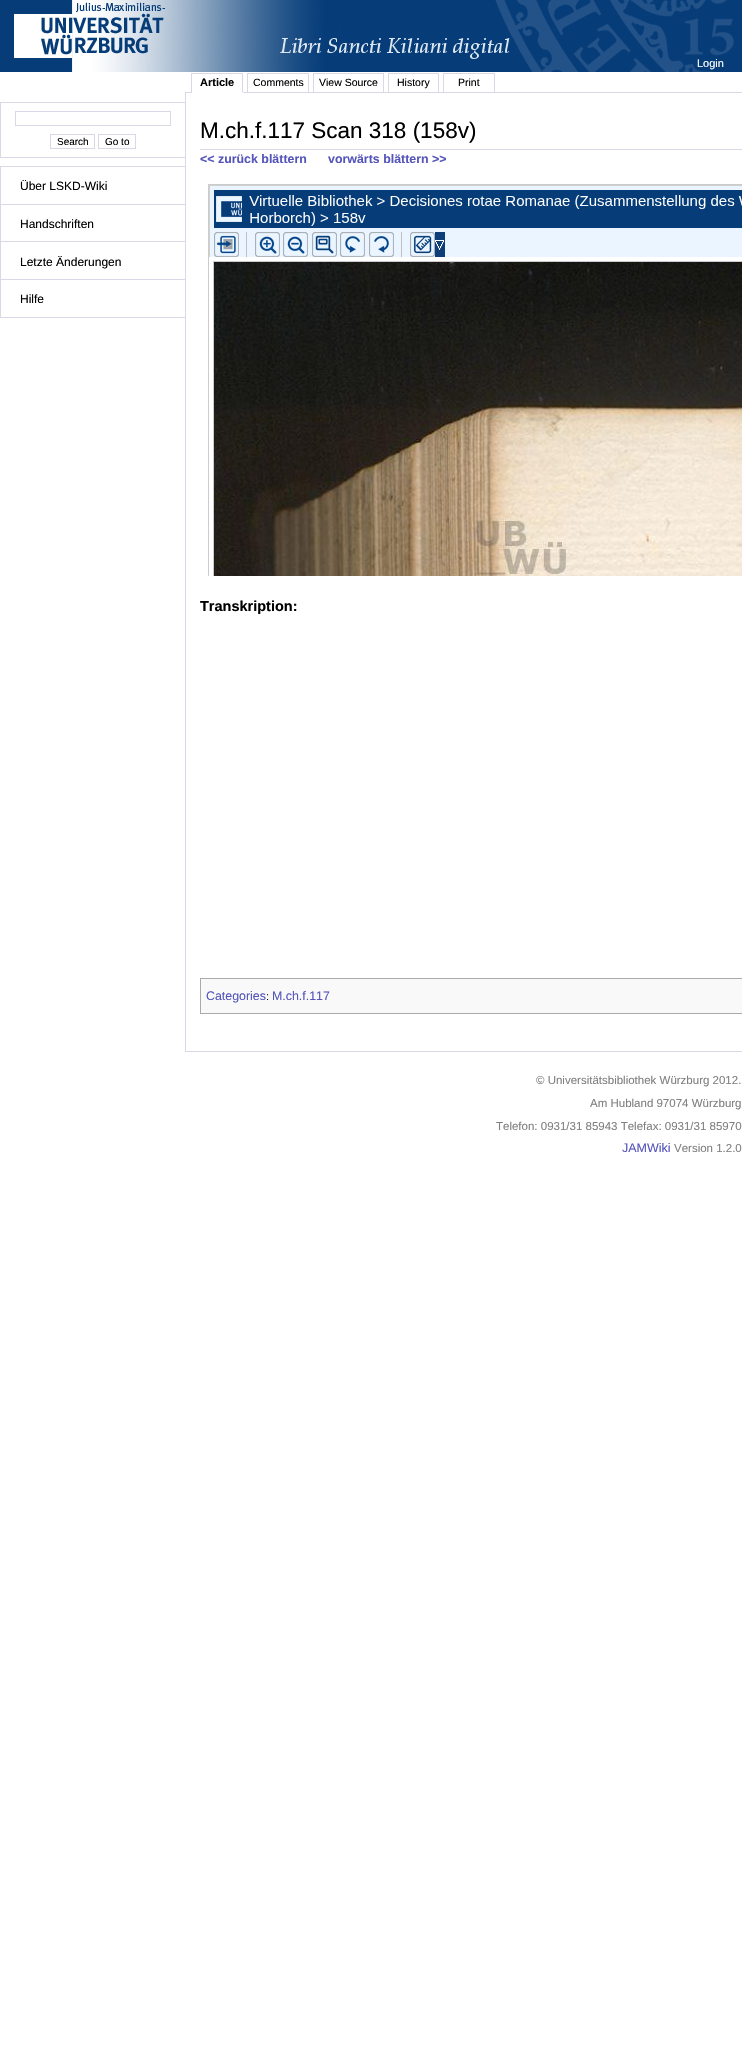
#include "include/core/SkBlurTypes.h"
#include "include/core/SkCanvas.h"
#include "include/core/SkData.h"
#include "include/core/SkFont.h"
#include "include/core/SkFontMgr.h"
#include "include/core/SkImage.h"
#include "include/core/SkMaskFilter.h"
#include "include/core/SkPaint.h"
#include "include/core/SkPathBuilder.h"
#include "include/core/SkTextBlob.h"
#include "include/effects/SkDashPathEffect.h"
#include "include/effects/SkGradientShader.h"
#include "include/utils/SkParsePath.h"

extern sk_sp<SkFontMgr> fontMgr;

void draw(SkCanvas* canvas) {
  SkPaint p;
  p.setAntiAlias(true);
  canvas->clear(SK_ColorWHITE);
  p.setColor(SkColorSetRGB(6, 61, 121));
  canvas->drawRect(SkRect::MakeLTRB(0, 0, 742, 72), p);
  canvas->drawImageRect(SkImages::DeferredFromEncodedData(SkData::MakeFromFileName("images/1.png")), SkRect::MakeLTRB(14, 0, 734, 72), SkSamplingOptions());
  p.setStyle(SkPaint::kStroke_Style);
  p.setStrokeWidth(1);
  p.setColor(SkColorSetRGB(216, 216, 231));
  canvas->drawRect(SkRect::MakeLTRB(0.5f, 102.5f, 185.5f, 157.5f), p);
  canvas->drawRect(SkRect::MakeLTRB(15.5f, 111.5f, 170.5f, 125.5f), p);
  canvas->drawRect(SkRect::MakeLTRB(50.5f, 134.5f, 94.5f, 148.5f), p);
  canvas->drawRect(SkRect::MakeLTRB(98.5f, 134.5f, 135.5f, 148.5f), p);
  p.setStyle(SkPaint::kFill_Style);
  canvas->drawRect(SkRect::MakeLTRB(0, 166, 186, 167), p);
  canvas->drawRect(SkRect::MakeLTRB(0, 166, 1, 318), p);
  canvas->drawRect(SkRect::MakeLTRB(1, 204, 185, 205), p);
  canvas->drawRect(SkRect::MakeLTRB(1, 241, 185, 242), p);
  canvas->drawRect(SkRect::MakeLTRB(1, 279, 185, 280), p);
  canvas->drawRect(SkRect::MakeLTRB(1, 317, 185, 318), p);
  canvas->drawRect(SkRect::MakeLTRB(191, 73, 243, 74), p);
  p.setStyle(SkPaint::kStroke_Style);
  canvas->drawRect(SkRect::MakeLTRB(185.5f, 92.5f, 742.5f, 1051.5f), p);
  p.setStyle(SkPaint::kFill_Style);
  canvas->drawRect(SkRect::MakeLTRB(242, 73, 243, 93), p);
  p.setColor(SK_ColorWHITE);
  canvas->drawRect(SkRect::MakeLTRB(191, 92, 243, 93), p);
  p.setColor(SkColorSetRGB(216, 216, 231));
  canvas->drawRect(SkRect::MakeLTRB(191, 73, 192, 93), p);
  canvas->drawRect(SkRect::MakeLTRB(247, 73, 309, 74), p);
  canvas->drawRect(SkRect::MakeLTRB(308, 73, 309, 92), p);
  canvas->drawRect(SkRect::MakeLTRB(247, 73, 248, 92), p);
  canvas->drawRect(SkRect::MakeLTRB(313, 73, 384, 74), p);
  canvas->drawRect(SkRect::MakeLTRB(383, 73, 384, 92), p);
  canvas->drawRect(SkRect::MakeLTRB(313, 73, 314, 92), p);
  canvas->drawRect(SkRect::MakeLTRB(388, 73, 439, 74), p);
  canvas->drawRect(SkRect::MakeLTRB(438, 73, 439, 92), p);
  canvas->drawRect(SkRect::MakeLTRB(388, 73, 389, 92), p);
  canvas->drawRect(SkRect::MakeLTRB(443, 73, 495, 74), p);
  canvas->drawRect(SkRect::MakeLTRB(494, 73, 495, 92), p);
  canvas->drawRect(SkRect::MakeLTRB(443, 73, 444, 92), p);
  canvas->drawRect(SkRect::MakeLTRB(200, 149, 742, 150), p);
  canvas->drawImageRect(SkImages::DeferredFromEncodedData(SkData::MakeFromFileName("images/2.png")), SkRect::MakeLTRB(208, 184, 742, 576), SkSamplingOptions());
  p.setColor(SkColorSetRGB(249, 249, 249));
  canvas->drawRect(SkRect::MakeLTRB(200.5f, 978.5f, 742.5f, 1013.5f), p);
  p.setStyle(SkPaint::kStroke_Style);
  p.setColor(SkColorSetRGB(170, 170, 170));
  canvas->drawRect(SkRect::MakeLTRB(200.5f, 978.5f, 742.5f, 1013.5f), p);
  SkFont font1(fontMgr->matchFamilyStyle("Liberation Sans", SkFontStyle::Normal()), 10);
  font1.setSubpixel(true);
  p.setStyle(SkPaint::kFill_Style);
  p.setColor(SK_ColorBLACK);
  canvas->drawString("Search", 57, 145, font1, p);
  canvas->drawString("Go to", 105, 145, font1, p);
  SkFont font2(fontMgr->matchFamilyStyle("Liberation Sans", SkFontStyle::Normal()), 12);
  font2.setSubpixel(true);
  canvas->drawString("Über LSKD-Wiki", 20, 190, font2, p);
  canvas->drawString("Handschriften", 20, 228, font2, p);
  canvas->drawString("Letzte Änderungen", 20, 266, font2, p);
  canvas->drawString("Hilfe", 20, 303, font2, p);
  SkFont font3(fontMgr->matchFamilyStyle("Liberation Sans", SkFontStyle::Normal()), 11);
  font3.setSubpixel(true);
  p.setColor(SK_ColorWHITE);
  canvas->drawString("Login", 697, 67, font3, p);
  SkFont font4(fontMgr->matchFamilyStyle("Liberation Sans", SkFontStyle::Bold()), 11);
  font4.setSubpixel(true);
  p.setColor(SK_ColorBLACK);
  canvas->drawString("Article", 200, 86, font4, p);
  SkFont font5(fontMgr->matchFamilyStyle("Liberation Sans", SkFontStyle::Normal()), 10.5f);
  font5.setSubpixel(true);
  canvas->drawString("Comments", 253, 86, font5, p);
  canvas->drawString("View Source", 319, 86, font5, p);
  canvas->drawString("History", 397, 86, font5, p);
  canvas->drawString("Print", 458, 86, font5, p);
  SkFont font6(fontMgr->matchFamilyStyle("Liberation Sans", SkFontStyle::Normal()), 22.5f);
  font6.setSubpixel(true);
  canvas->drawString("M.ch.f.117 Scan 318 (158v)", 200, 138, font6, p);
  SkFont font7(fontMgr->matchFamilyStyle("Liberation Sans", SkFontStyle::Bold()), 12.4f);
  font7.setSubpixel(true);
  p.setColor(SkColorSetRGB(85, 85, 187));
  canvas->drawString("<< zurück blättern", 200, 163, font7, p);
  canvas->drawString("vorwärts blättern >>", 328, 163, font7, p);
  SkFont font8(fontMgr->matchFamilyStyle("Liberation Sans", SkFontStyle::Bold()), 14.5f);
  font8.setSubpixel(true);
  p.setColor(SK_ColorBLACK);
  canvas->drawString("Transkription:", 200, 611, font8, p);
  SkFont font9(fontMgr->matchFamilyStyle("Liberation Sans", SkFontStyle::Normal()), 12.4f);
  font9.setSubpixel(true);
  p.setColor(SkColorSetRGB(85, 85, 187));
  canvas->drawString("Categories", 206, 1000, font9, p);
  p.setColor(SK_ColorBLACK);
  canvas->drawString(":", 266, 1000, font3, p);
  p.setColor(SkColorSetRGB(85, 85, 187));
  canvas->drawString("M.ch.f.117", 272, 1000, font9, p);
  SkFont font10(fontMgr->matchFamilyStyle("Liberation Sans", SkFontStyle::Normal()), 11.5f);
  font10.setSubpixel(true);
  p.setColor(SkColorSetRGB(128, 128, 128));
  canvas->drawString("© Universitätsbibliothek Würzburg 2012.", 536, 1084, font10, p);
  canvas->drawString("Am Hubland 97074 Würzburg", 590, 1107, font10, p);
  canvas->drawString("Telefon: 0931/31 85943 Telefax: 0931/31 85970", 496, 1130, font10, p);
  SkFont font11(fontMgr->matchFamilyStyle("Liberation Sans", SkFontStyle::Normal()), 12.5f);
  font11.setSubpixel(true);
  p.setColor(SkColorSetRGB(85, 85, 187));
  canvas->drawString("JAMWiki", 622, 1152, font11, p);
  p.setColor(SkColorSetRGB(128, 128, 128));
  canvas->drawString("Version 1.2.0", 674, 1152, font10, p);
}
